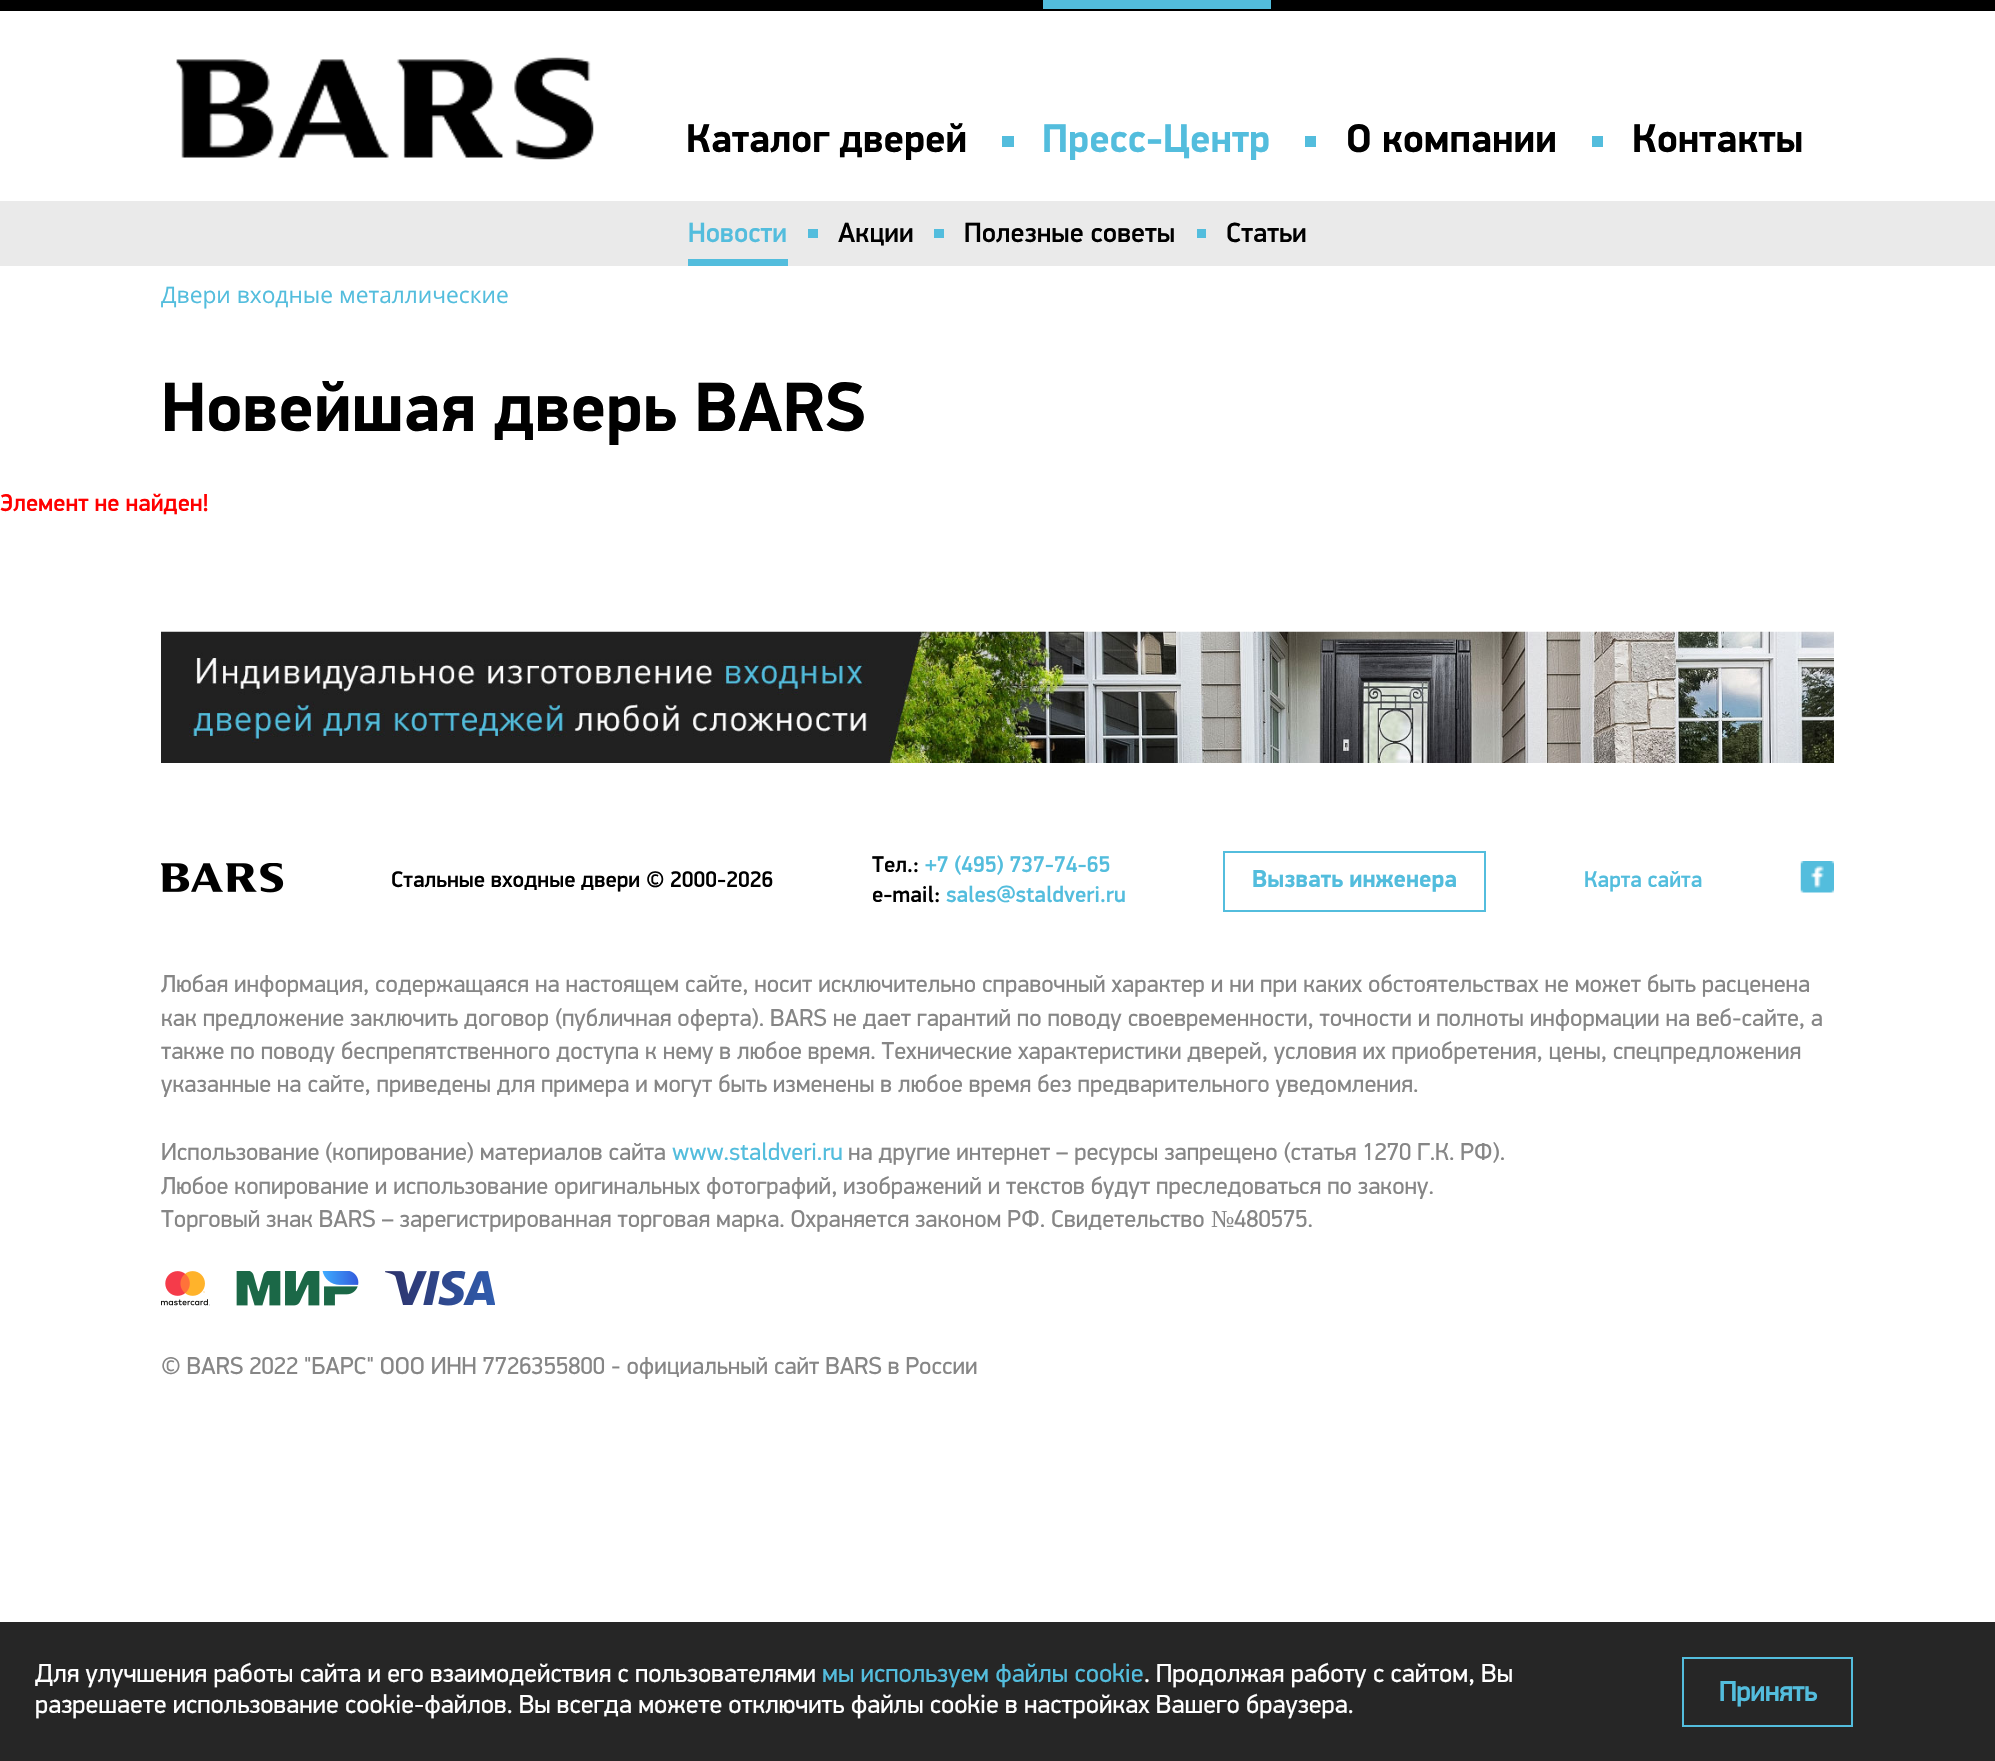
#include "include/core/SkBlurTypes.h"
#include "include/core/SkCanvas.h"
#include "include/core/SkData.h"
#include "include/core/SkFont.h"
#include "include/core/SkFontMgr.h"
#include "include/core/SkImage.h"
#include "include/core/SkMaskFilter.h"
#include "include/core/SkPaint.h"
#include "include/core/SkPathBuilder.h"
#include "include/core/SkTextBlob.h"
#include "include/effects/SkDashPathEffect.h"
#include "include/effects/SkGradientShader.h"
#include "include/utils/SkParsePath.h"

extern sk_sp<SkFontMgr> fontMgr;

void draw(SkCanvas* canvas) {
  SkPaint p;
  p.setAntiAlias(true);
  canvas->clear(SK_ColorWHITE);
  p.setColor(SK_ColorBLACK);
  canvas->drawRect(SkRect::MakeLTRB(0, 0, 1995, 11), p);
  canvas->drawImageRect(SkImages::DeferredFromEncodedData(SkData::MakeFromFileName("images/1.png")), SkRect::MakeLTRB(176, 57, 594, 160), SkSamplingOptions());
  p.setColor(SkColorSetRGB(83, 189, 221));
  canvas->drawRect(SkRect::MakeLTRB(1002, 136, 1014, 147), p);
  canvas->drawRect(SkRect::MakeLTRB(1043, 0, 1271, 9), p);
  canvas->drawRect(SkRect::MakeLTRB(1305, 136, 1316, 147), p);
  canvas->drawRect(SkRect::MakeLTRB(1592, 136, 1603, 147), p);
  p.setColor(SkColorSetRGB(234, 234, 234));
  canvas->drawRect(SkRect::MakeLTRB(0, 201, 1995, 266), p);
  p.setColor(SkColorSetRGB(83, 189, 221));
  canvas->drawRect(SkRect::MakeLTRB(688, 259, 788, 266), p);
  canvas->drawRect(SkRect::MakeLTRB(808, 229, 818, 238), p);
  canvas->drawRect(SkRect::MakeLTRB(934, 229, 944, 238), p);
  canvas->drawRect(SkRect::MakeLTRB(1197, 229, 1206, 238), p);
  canvas->drawImageRect(SkImages::DeferredFromEncodedData(SkData::MakeFromFileName("images/2.png")), SkRect::MakeLTRB(161, 631, 1834, 763), SkSamplingOptions());
  canvas->drawImageRect(SkImages::DeferredFromEncodedData(SkData::MakeFromFileName("images/3.png")), SkRect::MakeLTRB(161, 863, 284, 893), SkSamplingOptions());
  p.setStyle(SkPaint::kStroke_Style);
  p.setStrokeWidth(2);
  canvas->drawRect(SkRect::MakeLTRB(1224, 852, 1485, 911), p);
  canvas->drawImageRect(SkImages::DeferredFromEncodedData(SkData::MakeFromFileName("images/4.png")), SkRect::MakeLTRB(1800, 861, 1834, 893), SkSamplingOptions());
  canvas->drawImageRect(SkImages::DeferredFromEncodedData(SkData::MakeFromFileName("images/5.png")), SkRect::MakeLTRB(161, 1271, 495, 1306), SkSamplingOptions());
  p.setStyle(SkPaint::kFill_Style);
  p.setColor(SkColorSetRGB(38, 38, 38));
  canvas->drawRect(SkRect::MakeLTRB(0, 1622, 1995, 1761), p);
  p.setStyle(SkPaint::kStroke_Style);
  p.setColor(SkColorSetRGB(83, 189, 221));
  canvas->drawRect(SkRect::MakeLTRB(1683, 1658, 1852, 1726), p);
  SkFont font1(fontMgr->matchFamilyStyle("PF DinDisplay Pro", SkFontStyle::Bold()), 40.25f);
  font1.setSubpixel(true);
  p.setStyle(SkPaint::kFill_Style);
  p.setColor(SK_ColorBLACK);
  canvas->drawString("Каталог дверей", 686, 152, font1, p);
  p.setColor(SkColorSetRGB(83, 189, 221));
  canvas->drawString("Пресс-Центр", 1042, 152, font1, p);
  p.setColor(SK_ColorBLACK);
  canvas->drawString("О компании", 1346, 152, font1, p);
  canvas->drawString("Контакты", 1632, 152, font1, p);
  SkFont font2(fontMgr->matchFamilyStyle("PF DinDisplay Pro", SkFontStyle(500, SkFontStyle::kNormal_Width, SkFontStyle::kUpright_Slant)), 28);
  font2.setSubpixel(true);
  p.setColor(SkColorSetRGB(83, 189, 221));
  canvas->drawString("Новости", 688, 242, font2, p);
  p.setColor(SK_ColorBLACK);
  canvas->drawString("Акции", 838, 242, font2, p);
  canvas->drawString("Полезные советы", 964, 242, font2, p);
  canvas->drawString("Статьи", 1226, 242, font2, p);
  SkFont font3(fontMgr->matchFamilyStyle("Open Sans", SkFontStyle::Normal()), 22.75f);
  font3.setSubpixel(true);
  p.setColor(SkColorSetRGB(83, 189, 221));
  canvas->drawString("Двери входные металлические", 161, 303, font3, p);
  SkFont font4(fontMgr->matchFamilyStyle("PF DinDisplay Pro", SkFontStyle::Bold()), 70);
  font4.setSubpixel(true);
  p.setColor(SK_ColorBLACK);
  canvas->drawString("Новейшая дверь BARS", 161, 431, font4, p);
  SkFont font5(fontMgr->matchFamilyStyle("PF DinDisplay Pro", SkFontStyle(500, SkFontStyle::kNormal_Width, SkFontStyle::kUpright_Slant)), 24.5f);
  font5.setSubpixel(true);
  p.setColor(SkColorSetRGB(255, 0, 0));
  canvas->drawString("Элемент не найден!", 0, 511, font5, p);
  SkFont font6(fontMgr->matchFamilyStyle("PF DinDisplay Pro", SkFontStyle(500, SkFontStyle::kNormal_Width, SkFontStyle::kUpright_Slant)), 22.75f);
  font6.setSubpixel(true);
  p.setColor(SK_ColorBLACK);
  canvas->drawString("Стальные входные двери © 2000-2026", 391, 887, font6, p);
  canvas->drawString("Тел.:", 872, 872, font6, p);
  p.setColor(SkColorSetRGB(83, 189, 221));
  canvas->drawString("+7 (495) 737-74-65", 925, 872, font6, p);
  p.setColor(SK_ColorBLACK);
  canvas->drawString("e-mail:", 872, 902, font6, p);
  p.setColor(SkColorSetRGB(83, 189, 221));
  canvas->drawString("sales@staldveri.ru", 946, 902, font6, p);
  SkFont font7(fontMgr->matchFamilyStyle("PF DinDisplay Pro", SkFontStyle::Bold()), 24.5f);
  font7.setSubpixel(true);
  canvas->drawString("Вызвать инженера", 1252, 887, font7, p);
  canvas->drawString("Карта сайта", 1584, 887, font6, p);
  SkFont font8(fontMgr->matchFamilyStyle("PF DinDisplay Pro", SkFontStyle::Normal()), 24.5f);
  font8.setSubpixel(true);
  p.setColor(SkColorSetRGB(134, 134, 134));
  canvas->drawString("Любая информация, содержащаяся на настоящем сайте, носит исключительно справочный характер и ни при каких обстоятельствах не может быть расценена", 161, 992, font8, p);
  canvas->drawString("как предложение заключить договор (публичная оферта). BARS не дает гарантий по поводу своевременности, точности и полноты информации на веб-сайте, а", 161, 1026, font8, p);
  canvas->drawString("также по поводу беспрепятственного доступа к нему в любое время. Технические характеристики дверей, условия их приобретения, цены, спецпредложения", 161, 1059, font8, p);
  canvas->drawString("указанные на сайте, приведены для примера и могут быть изменены в любое время без предварительного уведомления.", 161, 1092, font8, p);
  canvas->drawString("Использование (копирование) материалов сайта", 161, 1160, font8, p);
  p.setColor(SkColorSetRGB(83, 189, 221));
  canvas->drawString("www.staldveri.ru", 672, 1160, font8, p);
  p.setColor(SkColorSetRGB(134, 134, 134));
  canvas->drawString("на другие интернет – ресурсы запрещено (статья 1270 Г.К. РФ).", 848, 1160, font8, p);
  canvas->drawString("Любое копирование и использование оригинальных фотографий, изображений и текстов будут преследоваться по закону.", 161, 1194, font8, p);
  canvas->drawString("Торговый знак BARS – зарегистрированная торговая марка. Охраняется законом РФ. Свидетельство", 161, 1227, font8, p);
  SkFont font9(fontMgr->matchFamilyStyle("Liberation Serif", SkFontStyle::Normal()), 24.5f);
  font9.setSubpixel(true);
  canvas->drawString("№", 1211, 1227, font9, p);
  canvas->drawString("480575.", 1234, 1227, font8, p);
  canvas->drawString("© BARS 2022 \"БАРС\" ООО ИНН 7726355800 - официальный сайт BARS в России", 161, 1374, font8, p);
  SkFont font10(fontMgr->matchFamilyStyle("PF DinDisplay Pro", SkFontStyle::Normal()), 26.25f);
  font10.setSubpixel(true);
  p.setColor(SK_ColorWHITE);
  canvas->drawString("Для улучшения работы сайта и его взаимодействия с пользователями", 35, 1682, font10, p);
  p.setColor(SkColorSetRGB(83, 189, 221));
  canvas->drawString("мы используем файлы cookie", 822, 1682, font10, p);
  p.setColor(SK_ColorWHITE);
  canvas->drawString(". Продолжая работу с сайтом, Вы", 1144, 1682, font10, p);
  canvas->drawString("разрешаете использование cookie-файлов. Вы всегда можете отключить файлы cookie в настройках Вашего браузера.", 35, 1713, font10, p);
  SkFont font11(fontMgr->matchFamilyStyle("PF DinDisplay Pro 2", SkFontStyle::Bold()), 28);
  font11.setSubpixel(true);
  p.setColor(SkColorSetRGB(83, 189, 221));
  canvas->drawString("Принять", 1719, 1701, font11, p);
}
